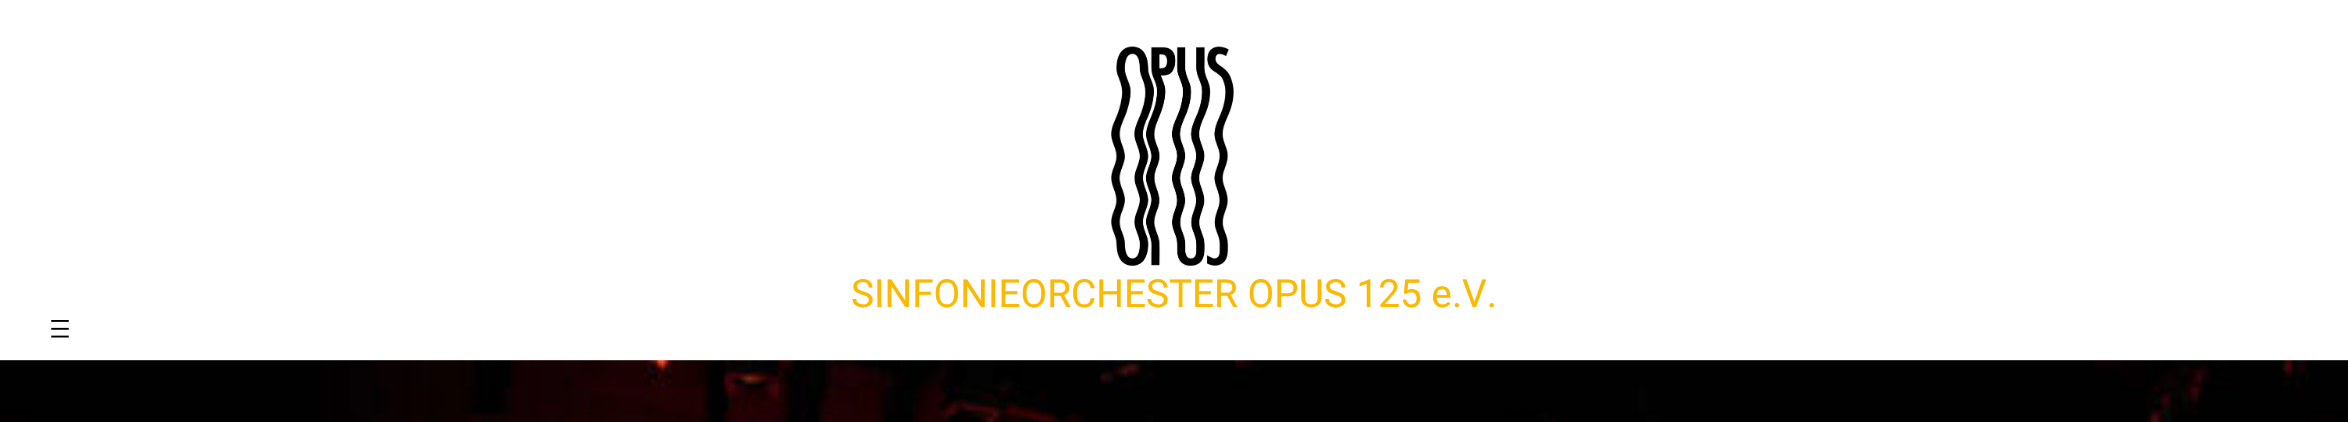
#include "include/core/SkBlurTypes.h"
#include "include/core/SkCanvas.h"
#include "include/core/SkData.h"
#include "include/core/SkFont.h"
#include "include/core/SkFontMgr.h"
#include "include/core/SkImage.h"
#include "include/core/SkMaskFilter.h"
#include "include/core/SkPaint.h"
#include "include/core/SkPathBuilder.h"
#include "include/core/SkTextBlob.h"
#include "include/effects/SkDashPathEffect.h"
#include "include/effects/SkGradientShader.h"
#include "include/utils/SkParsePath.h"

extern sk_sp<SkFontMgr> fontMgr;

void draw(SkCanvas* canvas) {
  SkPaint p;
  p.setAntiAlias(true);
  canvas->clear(SK_ColorWHITE);
  canvas->drawImageRect(SkImages::DeferredFromEncodedData(SkData::MakeFromFileName("images/1.png")), SkRect::MakeLTRB(1111, 46, 1234, 267), SkSamplingOptions());
  canvas->drawImageRect(SkImages::DeferredFromEncodedData(SkData::MakeFromFileName("images/2.png")), SkRect::MakeLTRB(51, 320, 69, 338), SkSamplingOptions());
  canvas->drawImageRect(SkImages::DeferredFromEncodedData(SkData::MakeFromFileName("images/3.png")), SkRect::MakeLTRB(0, 360, 2348, 422), SkSamplingOptions());
  SkFont font1(fontMgr->matchFamilyStyle("Roboto", SkFontStyle::Normal()), 38.75f);
  font1.setSubpixel(true);
  p.setColor(SkColorSetRGB(252, 185, 0));
  canvas->drawString("SINFONIEORCHESTER OPUS 125 e.V.", 851, 307, font1, p);
}
